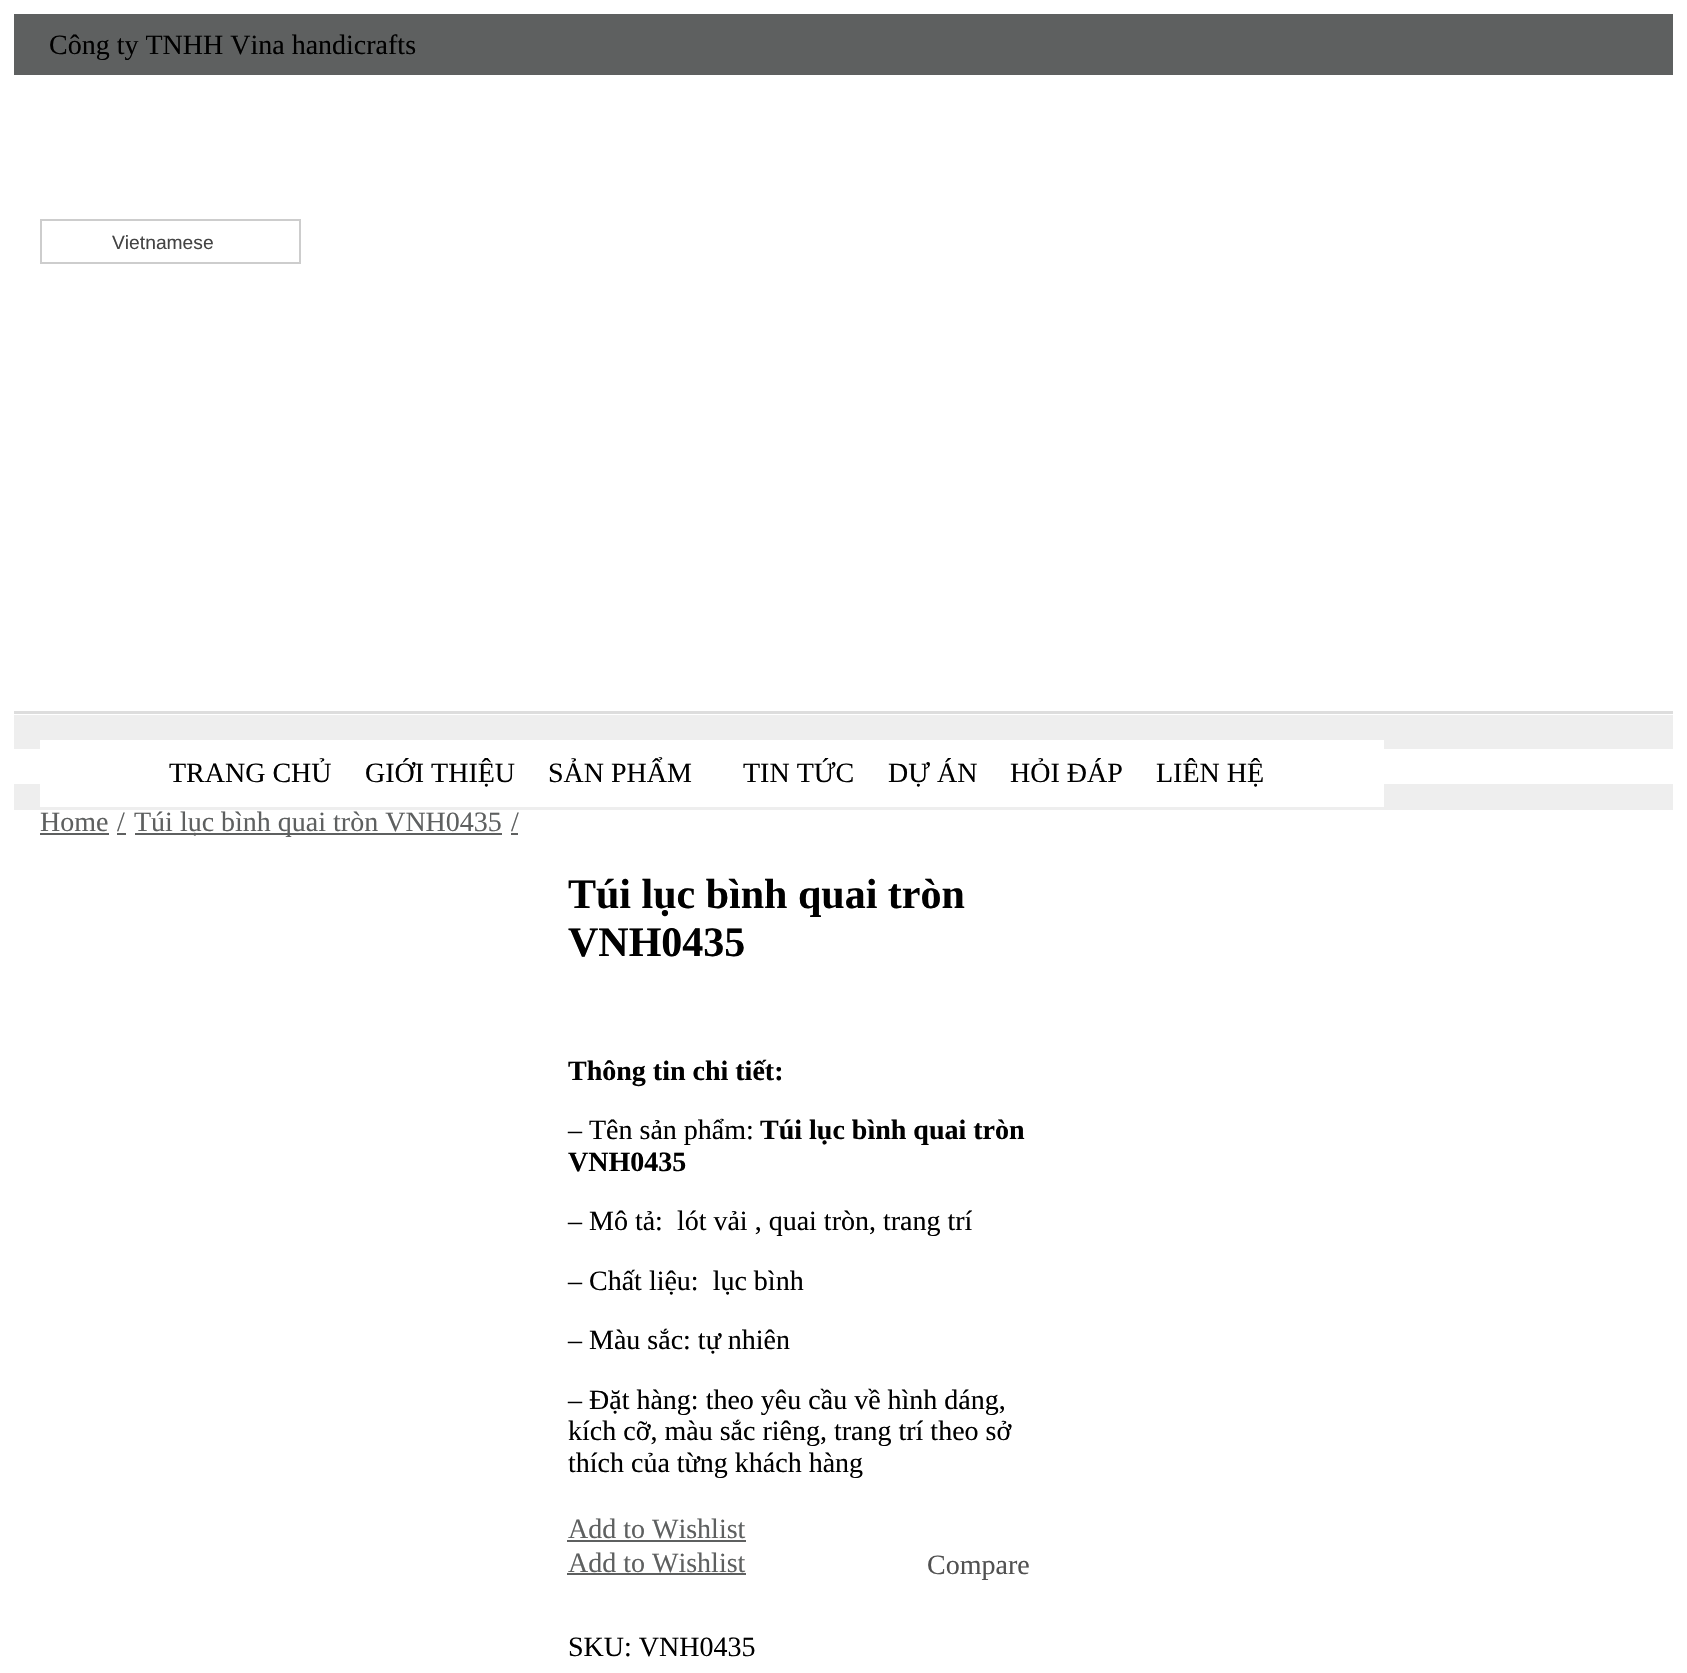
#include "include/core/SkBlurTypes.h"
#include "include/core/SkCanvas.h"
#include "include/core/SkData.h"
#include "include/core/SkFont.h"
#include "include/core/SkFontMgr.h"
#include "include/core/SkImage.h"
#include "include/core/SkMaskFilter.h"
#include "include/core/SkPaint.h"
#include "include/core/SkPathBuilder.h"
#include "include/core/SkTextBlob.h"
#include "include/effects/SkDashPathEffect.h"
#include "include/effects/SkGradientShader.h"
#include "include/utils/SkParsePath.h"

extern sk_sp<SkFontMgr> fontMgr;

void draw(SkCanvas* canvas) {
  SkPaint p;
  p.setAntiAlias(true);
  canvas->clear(SK_ColorWHITE);
  p.setColor(SkColorSetRGB(94, 96, 96));
  canvas->drawRect(SkRect::MakeLTRB(14, 14, 1673, 75), p);
  p.setStyle(SkPaint::kStroke_Style);
  p.setStrokeWidth(2);
  p.setColor(SkColorSetRGB(205, 205, 205));
  canvas->drawRect(SkRect::MakeLTRB(41, 220, 300, 263), p);
  p.setStyle(SkPaint::kFill_Style);
  p.setColor(SkColorSetRGB(221, 221, 221));
  canvas->drawRect(SkRect::MakeLTRB(14, 711, 1673, 714), p);
  p.setColor(SkColorSetRGB(238, 238, 238));
  canvas->drawRect(SkRect::MakeLTRB(14, 715, 1673, 749), p);
  canvas->drawRect(SkRect::MakeLTRB(14, 784, 1673, 810), p);
  p.setColor(SK_ColorWHITE);
  canvas->drawRect(SkRect::MakeLTRB(40, 740, 1384, 807), p);
  p.setColor(SkColorSetRGB(94, 96, 96));
  canvas->drawRect(SkRect::MakeLTRB(40, 833, 109, 835), p);
  canvas->drawRect(SkRect::MakeLTRB(117, 833, 126, 835), p);
  canvas->drawRect(SkRect::MakeLTRB(135, 833, 502, 835), p);
  canvas->drawRect(SkRect::MakeLTRB(511, 833, 518, 835), p);
  canvas->drawRect(SkRect::MakeLTRB(567, 1540, 746, 1542), p);
  canvas->drawRect(SkRect::MakeLTRB(567, 1573, 746, 1575), p);
  SkFont font1(fontMgr->matchFamilyStyle("Liberation Serif", SkFontStyle::Normal()), 28);
  font1.setSubpixel(true);
  p.setColor(SK_ColorBLACK);
  canvas->drawString("Công ty TNHH Vina handicrafts", 49, 54, font1, p);
  SkFont font2(fontMgr->matchFamilyStyle("Liberation Sans", SkFontStyle::Normal()), 19.25f);
  font2.setSubpixel(true);
  p.setColor(SkColorSetRGB(68, 68, 68));
  canvas->drawString("Vietnamese", 112, 249, font2, p);
  p.setColor(SK_ColorBLACK);
  canvas->drawString("TRANG CHỦ", 169, 782, font1, p);
  canvas->drawString("GIỚI THIỆU", 365, 782, font1, p);
  canvas->drawString("SẢN PHẨM", 548, 782, font1, p);
  canvas->drawString("TIN TỨC", 743, 782, font1, p);
  canvas->drawString("DỰ ÁN", 888, 782, font1, p);
  canvas->drawString("HỎI ĐÁP", 1010, 782, font1, p);
  canvas->drawString("LIÊN HỆ", 1156, 782, font1, p);
  p.setColor(SkColorSetRGB(94, 96, 96));
  canvas->drawString("Home", 40, 831, font1, p);
  canvas->drawString("/", 117, 831, font1, p);
  canvas->drawString("Túi lục bình quai tròn VNH0435", 134, 831, font1, p);
  canvas->drawString("/", 511, 831, font1, p);
  SkFont font3(fontMgr->matchFamilyStyle("Liberation Serif", SkFontStyle::Bold()), 42);
  font3.setSubpixel(true);
  p.setColor(SK_ColorBLACK);
  canvas->drawString("Túi lục bình quai tròn", 568, 908, font3, p);
  canvas->drawString("VNH0435", 568, 956, font3, p);
  SkFont font4(fontMgr->matchFamilyStyle("Liberation Serif", SkFontStyle::Bold()), 28);
  font4.setSubpixel(true);
  canvas->drawString("Thông tin chi tiết:", 568, 1080, font4, p);
  canvas->drawString("– Tên sản phẩm:", 568, 1139, font1, p);
  canvas->drawString("Túi lục bình quai tròn", 760, 1139, font4, p);
  canvas->drawString("VNH0435", 568, 1171, font4, p);
  canvas->drawString("– Mô tả:  lót vải , quai tròn, trang trí", 568, 1230, font1, p);
  canvas->drawString("– Chất liệu:  lục bình", 568, 1290, font1, p);
  canvas->drawString("– Màu sắc: tự nhiên", 568, 1349, font1, p);
  canvas->drawString("– Đặt hàng: theo yêu cầu về hình dáng,", 568, 1409, font1, p);
  canvas->drawString("kích cỡ, màu sắc riêng, trang trí theo sở", 568, 1440, font1, p);
  canvas->drawString("thích của từng khách hàng", 568, 1472, font1, p);
  p.setColor(SkColorSetRGB(94, 96, 96));
  canvas->drawString("Add to Wishlist", 568, 1538, font1, p);
  canvas->drawString("Add to Wishlist", 568, 1572, font1, p);
  p.setColor(SkColorSetRGB(81, 81, 81));
  canvas->drawString("Compare", 927, 1574, font1, p);
  p.setColor(SK_ColorBLACK);
  canvas->drawString("SKU: VNH0435", 568, 1656, font1, p);
}
